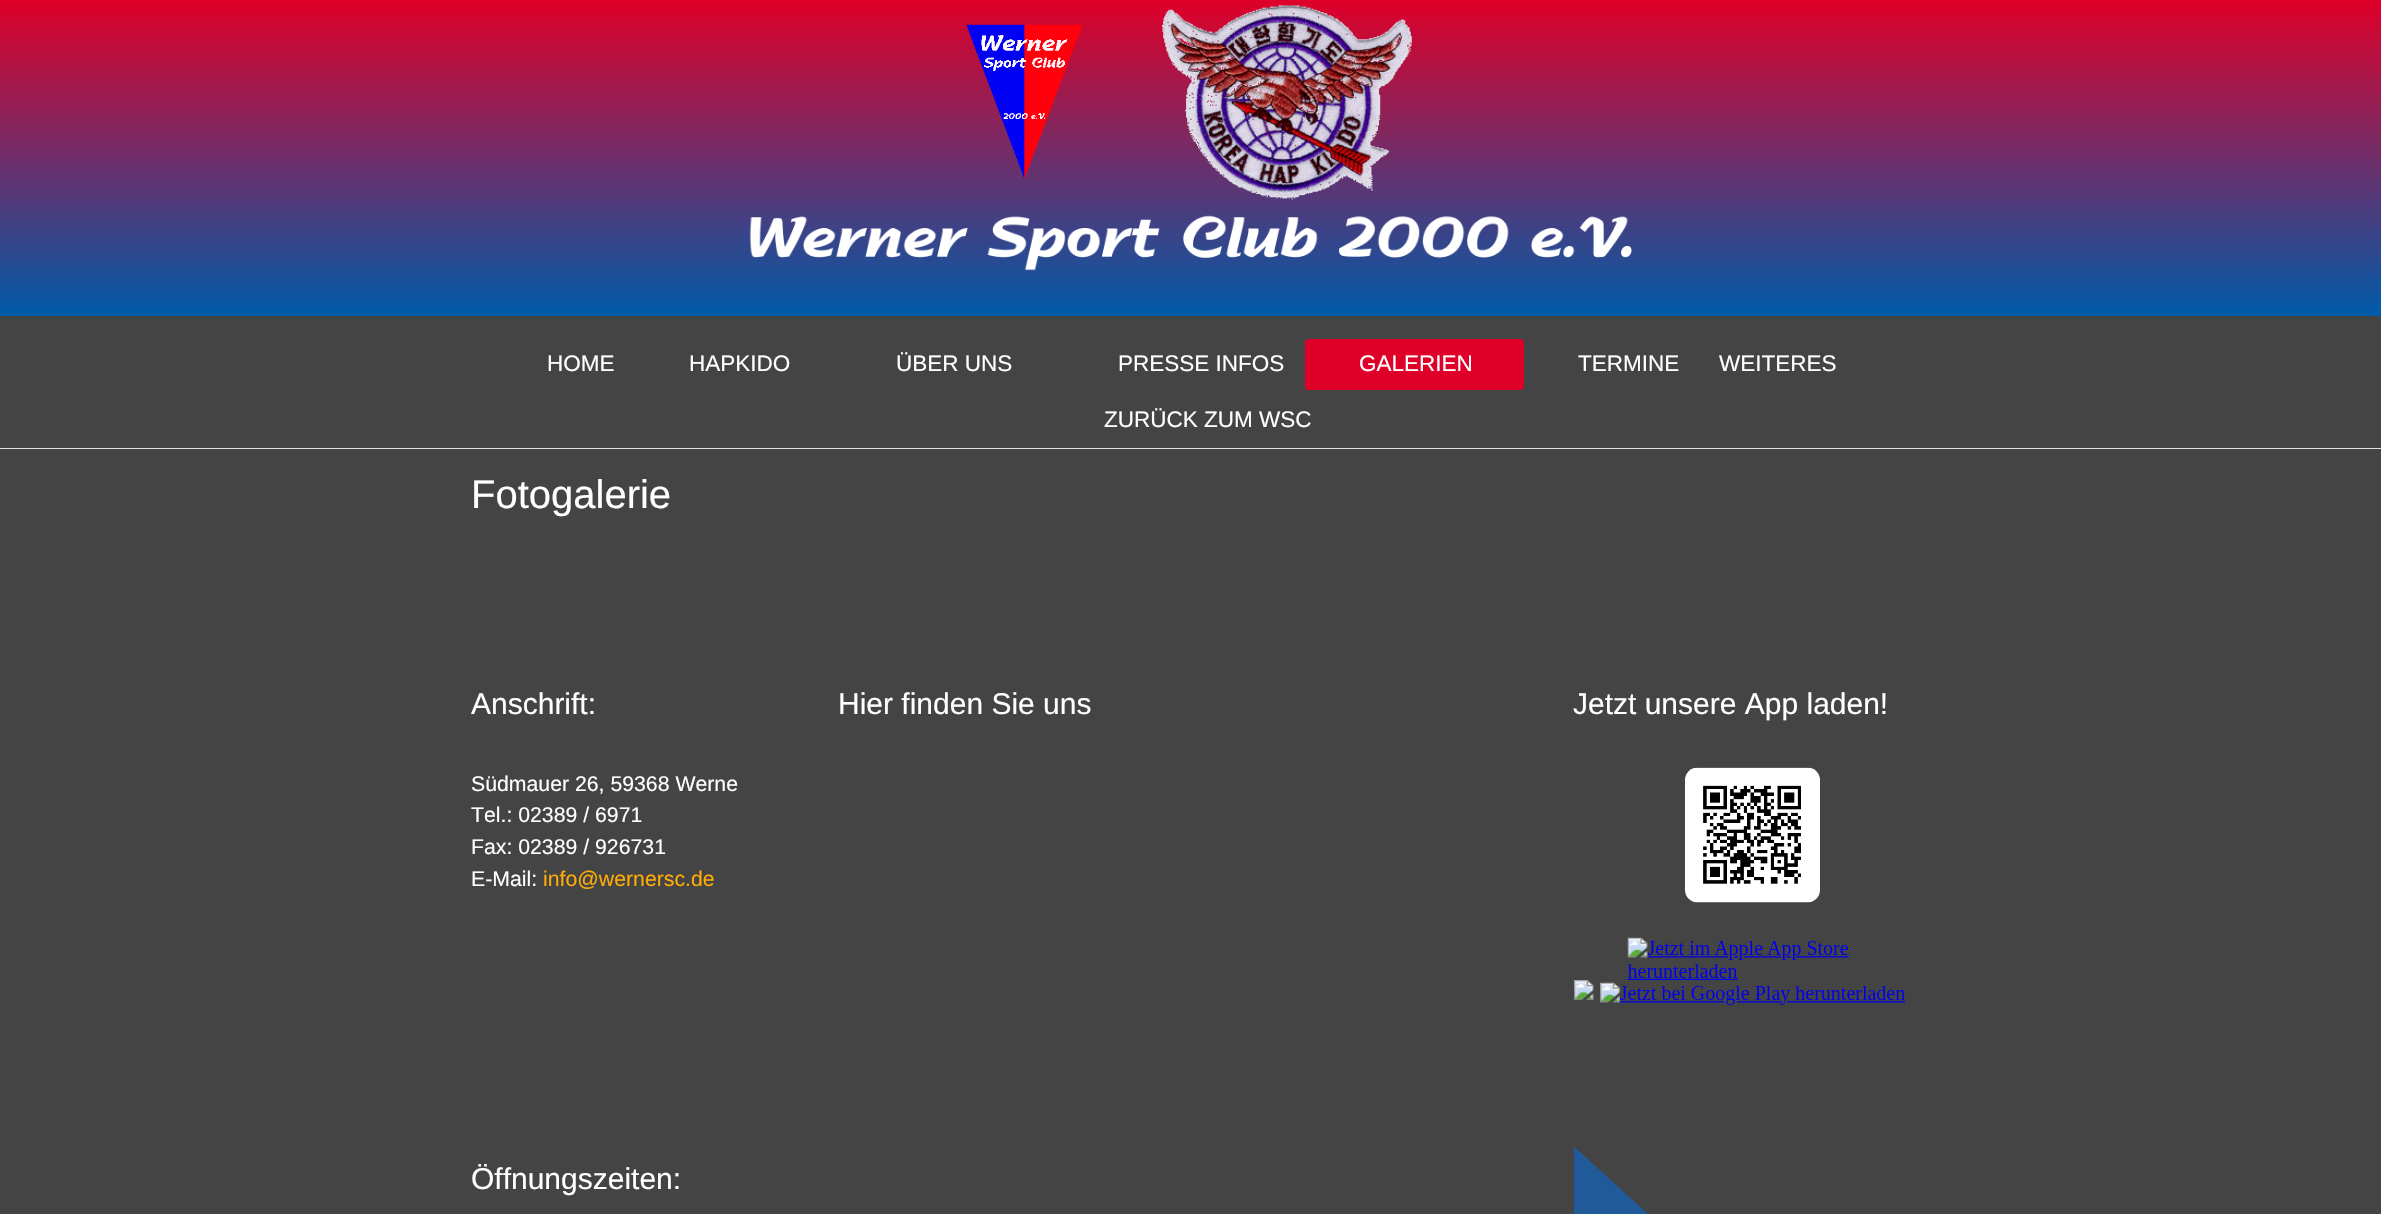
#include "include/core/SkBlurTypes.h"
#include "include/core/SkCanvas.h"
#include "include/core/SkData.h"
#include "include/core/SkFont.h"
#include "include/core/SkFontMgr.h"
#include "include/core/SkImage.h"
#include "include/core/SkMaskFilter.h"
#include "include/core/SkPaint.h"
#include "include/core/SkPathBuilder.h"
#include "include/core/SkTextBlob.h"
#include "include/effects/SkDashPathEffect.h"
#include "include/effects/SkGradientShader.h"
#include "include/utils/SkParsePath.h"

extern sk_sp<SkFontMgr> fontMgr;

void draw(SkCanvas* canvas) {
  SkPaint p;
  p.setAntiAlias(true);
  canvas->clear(SkColorSetRGB(68, 68, 68));
  {
    const SkColor colors[] = {SkColorSetRGB(0, 91, 169), SkColorSetRGB(223, 0, 41)};
    const float stops[] = {0, 1};
    const SkPoint ends[] = {{1191, 316}, {1191, 0}};
    p.setShader(SkGradientShader::MakeLinear(ends, colors, stops, 2, SkTileMode::kClamp));
    p.setAlpha(255);
  }
  canvas->drawRect(SkRect::MakeLTRB(0, 0, 2381, 316), p);
  canvas->drawImageRect(SkImages::DeferredFromEncodedData(SkData::MakeFromFileName("images/1.png")), SkRect::MakeLTRB(966, 24, 1083, 179), SkSamplingOptions());
  canvas->drawImageRect(SkImages::DeferredFromEncodedData(SkData::MakeFromFileName("images/2.png")), SkRect::MakeLTRB(1162, 5, 1412, 200), SkSamplingOptions());
  canvas->drawImageRect(SkImages::DeferredFromEncodedData(SkData::MakeFromFileName("images/3.png")), SkRect::MakeLTRB(749, 215, 1632, 271), SkSamplingOptions());
  p.setShader(nullptr);
  p.setColor(SkColorSetRGB(222, 226, 230));
  canvas->drawRect(SkRect::MakeLTRB(0, 448, 2381, 449), p);
  p.setColor(SkColorSetRGB(223, 0, 41));
  canvas->drawRoundRect(SkRect::MakeLTRB(1305, 339, 1524, 390), 4, 4, p);
  canvas->drawImageRect(SkImages::DeferredFromEncodedData(SkData::MakeFromFileName("images/4.png")), SkRect::MakeLTRB(1573, 767, 1905, 1214), SkSamplingOptions());
  SkFont font1(fontMgr->matchFamilyStyle("Liberation Sans", SkFontStyle::Normal()), 22.5f);
  font1.setSubpixel(true);
  p.setColor(SK_ColorWHITE);
  canvas->drawString("HOME", 547, 371, font1, p);
  canvas->drawString("HAPKIDO", 689, 371, font1, p);
  canvas->drawString("ÜBER UNS", 896, 371, font1, p);
  canvas->drawString("PRESSE INFOS", 1118, 371, font1, p);
  canvas->drawString("GALERIEN", 1359, 371, font1, p);
  canvas->drawString("TERMINE", 1578, 371, font1, p);
  canvas->drawString("WEITERES", 1719, 371, font1, p);
  canvas->drawString("ZURÜCK ZUM WSC", 1104, 427, font1, p);
  SkFont font2(fontMgr->matchFamilyStyle("Liberation Sans", SkFontStyle::Normal()), 40);
  font2.setSubpixel(true);
  canvas->drawString("Fotogalerie", 471, 508, font2, p);
  SkFont font3(fontMgr->matchFamilyStyle("Liberation Sans", SkFontStyle::Normal()), 30);
  font3.setSubpixel(true);
  canvas->drawString("Anschrift:", 471, 714, font3, p);
  SkFont font4(fontMgr->matchFamilyStyle("Liberation Sans", SkFontStyle::Normal()), 21.25f);
  font4.setSubpixel(true);
  canvas->drawString("Südmauer 26, 59368 Werne", 471, 791, font4, p);
  canvas->drawString("Tel.: 02389 / 6971", 471, 822, font4, p);
  canvas->drawString("Fax: 02389 / 926731", 471, 854, font4, p);
  canvas->drawString("E-Mail:", 471, 886, font4, p);
  p.setColor(SkColorSetRGB(255, 172, 8));
  canvas->drawString("info@wernersc.de", 543, 886, font4, p);
  p.setColor(SK_ColorWHITE);
  canvas->drawString("Öffnungszeiten:", 471, 1189, font3, p);
  canvas->drawString("Hier finden Sie uns", 838, 714, font3, p);
  canvas->drawString("Jetzt unsere App laden!", 1573, 714, font3, p);
}
